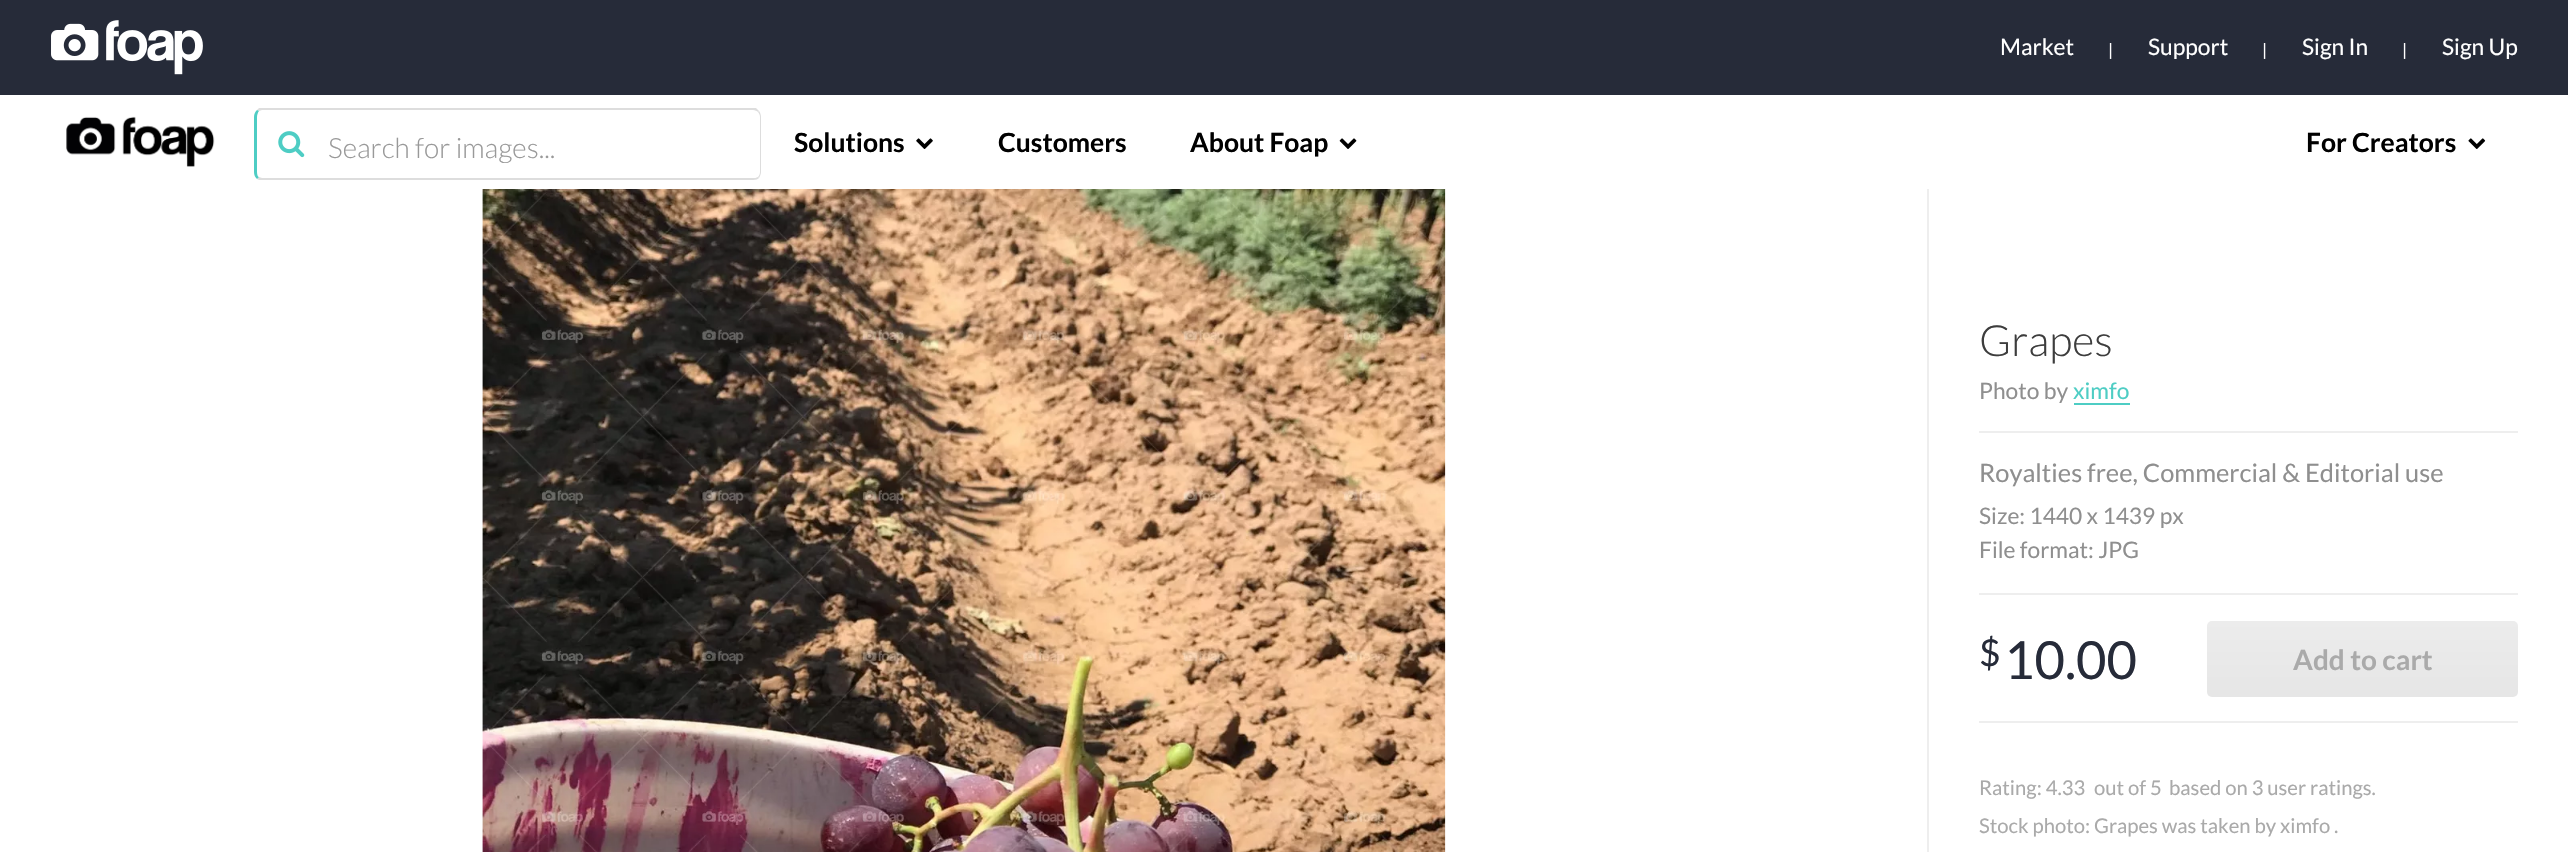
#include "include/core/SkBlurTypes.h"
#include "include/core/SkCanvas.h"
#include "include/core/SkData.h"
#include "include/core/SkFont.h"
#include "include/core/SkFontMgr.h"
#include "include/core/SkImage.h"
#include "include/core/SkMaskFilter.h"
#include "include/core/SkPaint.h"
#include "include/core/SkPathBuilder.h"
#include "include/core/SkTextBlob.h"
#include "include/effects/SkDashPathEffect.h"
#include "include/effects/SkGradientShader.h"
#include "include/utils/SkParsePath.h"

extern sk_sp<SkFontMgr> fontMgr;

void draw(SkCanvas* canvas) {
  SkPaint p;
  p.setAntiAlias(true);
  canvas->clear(SK_ColorWHITE);
  p.setColor(SkColorSetRGB(38, 43, 57));
  canvas->drawRect(SkRect::MakeLTRB(0, 0, 2568, 95), p);
  canvas->drawImageRect(SkImages::DeferredFromEncodedData(SkData::MakeFromFileName("images/1.png")), SkRect::MakeLTRB(51, 20, 203, 75), SkSamplingOptions());
  canvas->drawImageRect(SkImages::DeferredFromEncodedData(SkData::MakeFromFileName("images/2.png")), SkRect::MakeLTRB(66, 116, 215, 167), SkSamplingOptions());
  canvas->drawImageRect(SkImages::DeferredFromEncodedData(SkData::MakeFromFileName("images/3.png")), SkRect::MakeLTRB(278, 131, 305, 158), SkSamplingOptions());
  p.setColor(SkColorSetRGB(221, 221, 221));
  canvas->drawPath(SkPathBuilder().moveTo(262, 110).lineTo(259, 111).lineTo(257, 110).lineTo(259, 108).lineTo(756, 108).cubicTo(757, 109, 758, 110, 759, 111).lineTo(758, 112).cubicTo(757, 111, 755, 110, 753, 110).close().detach(), p);
  canvas->drawPath(SkPathBuilder().moveTo(759, 111).cubicTo(760, 112, 761, 115, 761, 117).lineTo(761, 172).cubicTo(761, 174, 760, 176, 759, 178).lineTo(758, 177).cubicTo(759, 176, 760, 174, 760, 172).lineTo(760, 117).cubicTo(760, 115, 759, 113, 758, 112).close().detach(), p);
  canvas->drawPath(SkPathBuilder().moveTo(759, 178).cubicTo(758, 179, 756, 180, 753, 180).lineTo(262, 180).cubicTo(260, 180, 258, 180, 257, 179).lineTo(259, 177).lineTo(262, 178).lineTo(753, 178).cubicTo(755, 178, 756, 178, 758, 177).close().detach(), p);
  p.setColor(SkColorSetRGB(78, 205, 196));
  canvas->drawPath(SkPathBuilder().moveTo(257, 179).cubicTo(255, 177, 254, 175, 254, 172).lineTo(254, 117).cubicTo(254, 114, 255, 112, 257, 110).lineTo(259, 111).cubicTo(258, 112, 257, 115, 257, 117).lineTo(257, 172).cubicTo(257, 175, 258, 177, 259, 177).close().detach(), p);
  canvas->drawImageRect(SkImages::DeferredFromEncodedData(SkData::MakeFromFileName("images/4.png")), SkRect::MakeLTRB(916, 138, 933, 149), SkSamplingOptions());
  canvas->drawImageRect(SkImages::DeferredFromEncodedData(SkData::MakeFromFileName("images/5.png")), SkRect::MakeLTRB(1339, 138, 1357, 149), SkSamplingOptions());
  canvas->drawImageRect(SkImages::DeferredFromEncodedData(SkData::MakeFromFileName("images/6.png")), SkRect::MakeLTRB(2468, 138, 2486, 149), SkSamplingOptions());
  canvas->drawImageRect(SkImages::DeferredFromEncodedData(SkData::MakeFromFileName("images/7.png")), SkRect::MakeLTRB(482, 189, 1446, 852), SkSamplingOptions());
  p.setColor(SkColorSetRGB(238, 238, 238));
  canvas->drawRect(SkRect::MakeLTRB(1927, 189, 1929, 852), p);
  canvas->drawRect(SkRect::MakeLTRB(1979, 431, 2518, 433), p);
  p.setColor(SkColorSetRGB(78, 205, 196));
  canvas->drawRect(SkRect::MakeLTRB(2074, 403, 2130, 405), p);
  p.setColor(SkColorSetRGB(238, 238, 238));
  canvas->drawRect(SkRect::MakeLTRB(1979, 593, 2518, 595), p);
  {
    const SkColor colors[] = {SkColorSetRGB(230, 230, 230), SkColorSetRGB(236, 236, 236)};
    const float stops[] = {0, 1};
    const SkPoint ends[] = {{2363, 696}, {2363, 621}};
    p.setShader(SkGradientShader::MakeLinear(ends, colors, stops, 2, SkTileMode::kClamp));
    p.setAlpha(255);
  }
  canvas->drawRoundRect(SkRect::MakeLTRB(2207, 621, 2518, 697), 5, 5, p);
  p.setShader(nullptr);
  p.setColor(SkColorSetRGB(238, 238, 238));
  canvas->drawRect(SkRect::MakeLTRB(1979, 721, 2518, 723), p);
  SkFont font1(fontMgr->matchFamilyStyle("Lato", SkFontStyle::Normal()), 22.75f);
  font1.setSubpixel(true);
  p.setColor(SK_ColorWHITE);
  canvas->drawString("Market", 2000, 55, font1, p);
  SkFont font2(fontMgr->matchFamilyStyle("Lato", SkFontStyle::Normal()), 17);
  font2.setSubpixel(true);
  canvas->drawString("|", 2108, 56, font2, p);
  canvas->drawString("Support", 2148, 55, font1, p);
  canvas->drawString("|", 2262, 56, font2, p);
  canvas->drawString("Sign In", 2302, 55, font1, p);
  canvas->drawString("|", 2402, 56, font2, p);
  canvas->drawString("Sign Up", 2442, 55, font1, p);
  canvas->save();
  canvas->clipRect(SkRect::MakeLTRB(327, 130, 705, 163));
  SkFont font3(fontMgr->matchFamilyStyle("Lato", SkFontStyle(300, SkFontStyle::kNormal_Width, SkFontStyle::kUpright_Slant)), 28);
  font3.setSubpixel(true);
  p.setColor(SkColorSetRGB(153, 153, 153));
  canvas->drawString("Search for images...", 328, 158, font3, p);
  canvas->restore();
  SkFont font4(fontMgr->matchFamilyStyle("Lato", SkFontStyle::Bold()), 26.5f);
  font4.setSubpixel(true);
  p.setColor(SK_ColorBLACK);
  canvas->drawString("Solutions", 794, 152, font4, p);
  canvas->drawString("Customers", 998, 152, font4, p);
  canvas->drawString("About Foap", 1190, 152, font4, p);
  canvas->drawString("For Creators", 2306, 152, font4, p);
  SkFont font5(fontMgr->matchFamilyStyle("Lato", SkFontStyle(300, SkFontStyle::kNormal_Width, SkFontStyle::kUpright_Slant)), 43);
  font5.setSubpixel(true);
  p.setColor(SkColorSetRGB(61, 61, 61));
  canvas->drawString("Grapes", 1979, 356, font5, p);
  p.setColor(SkColorSetRGB(143, 143, 143));
  canvas->drawString("Photo by", 1979, 399, font1, p);
  p.setColor(SkColorSetRGB(78, 205, 196));
  canvas->drawString("ximfo", 2073, 399, font1, p);
  SkFont font6(fontMgr->matchFamilyStyle("Lato", SkFontStyle::Normal()), 25.4f);
  font6.setSubpixel(true);
  p.setColor(SkColorSetRGB(143, 143, 143));
  canvas->drawString("Royalties free, Commercial & Editorial use", 1979, 482, font6, p);
  canvas->drawString("Size: 1440 x 1439 px", 1979, 524, font1, p);
  canvas->drawString("File format: JPG", 1979, 558, font1, p);
  SkFont font7(fontMgr->matchFamilyStyle("Lato", SkFontStyle::Normal()), 37);
  font7.setSubpixel(true);
  p.setColor(SkColorSetRGB(38, 43, 57));
  canvas->drawString("$", 1979, 666, font7, p);
  SkFont font8(fontMgr->matchFamilyStyle("Lato", SkFontStyle::Normal()), 52.5f);
  font8.setSubpixel(true);
  canvas->drawString("10.00", 2004, 679, font8, p);
  SkFont font9(fontMgr->matchFamilyStyle("Lato", SkFontStyle::Bold()), 28);
  font9.setSubpixel(true);
  p.setColor(SkColorSetRGB(170, 170, 170));
  canvas->drawString("Add to cart", 2293, 670, font9, p);
  SkFont font10(fontMgr->matchFamilyStyle("Lato", SkFontStyle::Normal()), 20.25f);
  font10.setSubpixel(true);
  canvas->drawString("Rating: 4.33", 1979, 795, font10, p);
  canvas->drawString("out of 5", 2094, 795, font10, p);
  canvas->drawString("based on 3 user ratings.", 2169, 795, font10, p);
  canvas->drawString("Stock photo: Grapes was taken by ximfo .", 1979, 833, font10, p);
}
